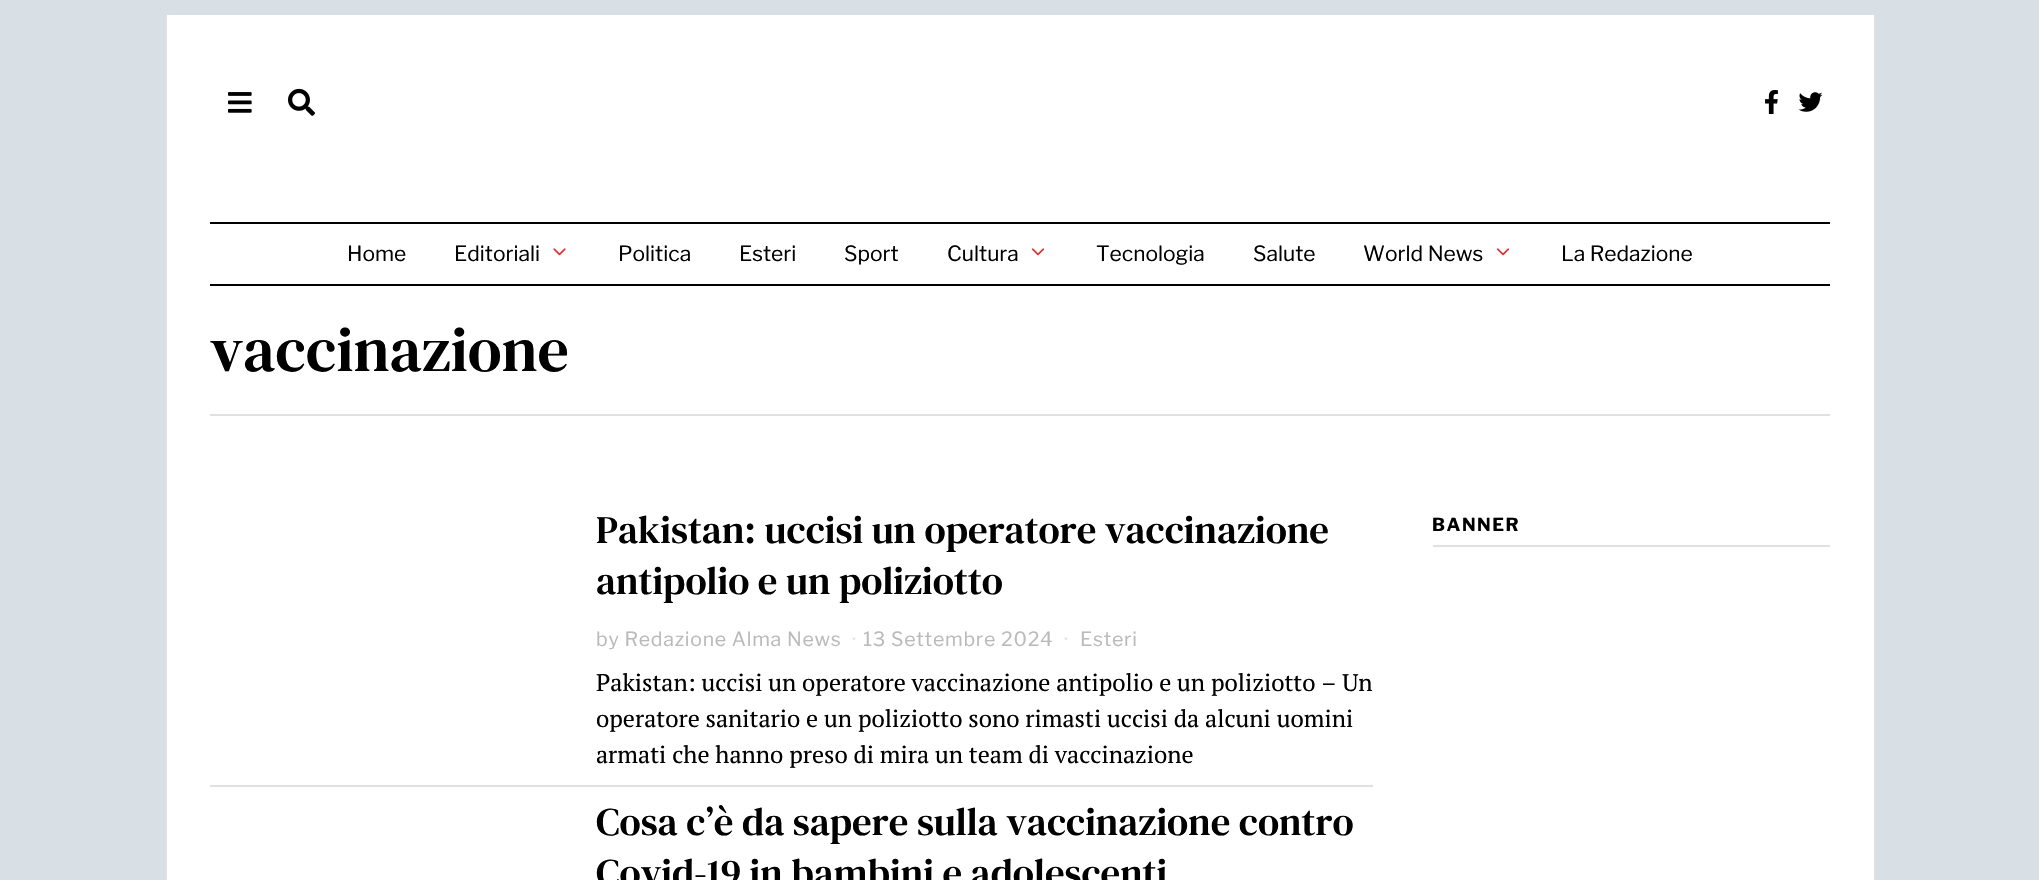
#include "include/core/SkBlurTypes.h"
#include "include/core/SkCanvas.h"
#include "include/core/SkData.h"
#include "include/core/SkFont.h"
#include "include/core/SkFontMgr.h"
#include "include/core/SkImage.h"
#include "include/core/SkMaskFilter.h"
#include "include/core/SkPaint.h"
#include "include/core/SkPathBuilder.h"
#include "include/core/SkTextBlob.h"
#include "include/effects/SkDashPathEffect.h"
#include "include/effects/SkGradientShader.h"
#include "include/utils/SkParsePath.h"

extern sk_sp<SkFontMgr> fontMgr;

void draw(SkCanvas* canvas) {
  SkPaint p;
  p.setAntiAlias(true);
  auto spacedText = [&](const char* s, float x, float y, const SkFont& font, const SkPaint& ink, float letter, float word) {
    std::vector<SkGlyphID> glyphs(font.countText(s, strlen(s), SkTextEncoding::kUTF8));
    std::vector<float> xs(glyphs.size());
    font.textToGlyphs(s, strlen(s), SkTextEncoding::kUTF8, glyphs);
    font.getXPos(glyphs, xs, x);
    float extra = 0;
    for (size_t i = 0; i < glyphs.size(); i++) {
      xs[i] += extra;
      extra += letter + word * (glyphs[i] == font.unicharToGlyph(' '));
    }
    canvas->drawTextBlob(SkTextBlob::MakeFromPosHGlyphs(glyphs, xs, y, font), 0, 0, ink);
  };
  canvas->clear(SkColorSetRGB(216, 224, 230));
  p.setColor(SkColorSetRGB(224, 224, 224));
  canvas->drawRect(SkRect::MakeLTRB(1874, 15, 1876, 880), p);
  canvas->drawRect(SkRect::MakeLTRB(165, 15, 167, 880), p);
  p.setColor(SK_ColorWHITE);
  canvas->drawRect(SkRect::MakeLTRB(167, 15, 1874, 880), p);
  canvas->drawImageRect(SkImages::DeferredFromEncodedData(SkData::MakeFromFileName("images/1.png")), SkRect::MakeLTRB(228, 92, 252, 113), SkSamplingOptions());
  canvas->drawImageRect(SkImages::DeferredFromEncodedData(SkData::MakeFromFileName("images/2.png")), SkRect::MakeLTRB(288, 88, 315, 116), SkSamplingOptions());
  canvas->drawImageRect(SkImages::DeferredFromEncodedData(SkData::MakeFromFileName("images/3.png")), SkRect::MakeLTRB(1765, 90, 1778, 114), SkSamplingOptions());
  canvas->drawImageRect(SkImages::DeferredFromEncodedData(SkData::MakeFromFileName("images/4.png")), SkRect::MakeLTRB(1798, 92, 1823, 112), SkSamplingOptions());
  p.setColor(SK_ColorBLACK);
  canvas->drawRect(SkRect::MakeLTRB(210, 222, 1830, 224), p);
  canvas->drawRect(SkRect::MakeLTRB(210, 284, 1830, 286), p);
  canvas->drawImageRect(SkImages::DeferredFromEncodedData(SkData::MakeFromFileName("images/5.png")), SkRect::MakeLTRB(553, 248, 566, 256), SkSamplingOptions());
  canvas->drawImageRect(SkImages::DeferredFromEncodedData(SkData::MakeFromFileName("images/6.png")), SkRect::MakeLTRB(1031, 248, 1045, 256), SkSamplingOptions());
  canvas->drawImageRect(SkImages::DeferredFromEncodedData(SkData::MakeFromFileName("images/6.png")), SkRect::MakeLTRB(1496, 248, 1510, 256), SkSamplingOptions());
  p.setColor(SkColorSetRGB(224, 224, 224));
  canvas->drawRect(SkRect::MakeLTRB(210, 414, 1830, 416), p);
  canvas->drawRect(SkRect::MakeLTRB(210, 785, 1373, 787), p);
  canvas->drawRect(SkRect::MakeLTRB(1433, 545, 1830, 547), p);
  SkFont font1(fontMgr->matchFamilyStyle("Libre Franklin", SkFontStyle::Normal()), 21);
  font1.setSubpixel(true);
  p.setColor(SK_ColorBLACK);
  canvas->drawString("Home", 347, 261, font1, p);
  canvas->drawString("Editoriali", 454, 261, font1, p);
  canvas->drawString("Politica", 618, 261, font1, p);
  canvas->drawString("Esteri", 739, 261, font1, p);
  canvas->drawString("Sport", 844, 261, font1, p);
  canvas->drawString("Cultura", 947, 261, font1, p);
  canvas->drawString("Tecnologia", 1096, 261, font1, p);
  canvas->drawString("Salute", 1253, 261, font1, p);
  canvas->drawString("World News", 1363, 261, font1, p);
  canvas->drawString("La Redazione", 1561, 261, font1, p);
  SkFont font2(fontMgr->matchFamilyStyle("DM Serif Text", SkFontStyle::Normal()), 62.5f);
  font2.setSubpixel(true);
  canvas->drawString("vaccinazione", 210, 371, font2, p);
  SkFont font3(fontMgr->matchFamilyStyle("DM Serif Text", SkFontStyle::Normal()), 39);
  font3.setSubpixel(true);
  canvas->drawString("Pakistan: uccisi un operatore vaccinazione", 596, 543, font3, p);
  canvas->drawString("antipolio e un poliziotto", 596, 594, font3, p);
  SkFont font4(fontMgr->matchFamilyStyle("Libre Franklin", SkFontStyle::Normal()), 19.5f);
  font4.setSubpixel(true);
  p.setColor(SkColorSetRGB(186, 186, 186));
  spacedText("by Redazione Alma News", 596, 646, font4, p, 0.75f, 0);
  p.setColor(SkColorSetRGB(227, 227, 227));
  spacedText("·", 852, 646, font4, p, 0.75f, 0);
  p.setColor(SkColorSetRGB(186, 186, 186));
  spacedText("13 Settembre 2024", 863, 646, font4, p, 0.75f, 0);
  p.setColor(SkColorSetRGB(227, 227, 227));
  spacedText("·", 1064, 646, font4, p, 0.75f, 0);
  p.setColor(SkColorSetRGB(186, 186, 186));
  spacedText("Esteri", 1080, 646, font4, p, 0.75f, 0);
  SkFont font5(fontMgr->matchFamilyStyle("PT Serif", SkFontStyle::Normal()), 24);
  font5.setSubpixel(true);
  p.setColor(SK_ColorBLACK);
  canvas->drawString("Pakistan: uccisi un operatore vaccinazione antipolio e un poliziotto – Un", 596, 691, font5, p);
  canvas->drawString("operatore sanitario e un poliziotto sono rimasti uccisi da alcuni uomini", 596, 727, font5, p);
  canvas->drawString("armati che hanno preso di mira un team di vaccinazione", 596, 763, font5, p);
  canvas->drawString("Cosa c’è da sapere sulla vaccinazione contro", 596, 835, font3, p);
  canvas->drawString("Covid-19 in bambini e adolescenti", 596, 886, font3, p);
  SkFont font6(fontMgr->matchFamilyStyle("Libre Franklin", SkFontStyle::Bold()), 18);
  font6.setSubpixel(true);
  spacedText("BANNER", 1432, 531, font6, p, 1.5f, 0);
}
